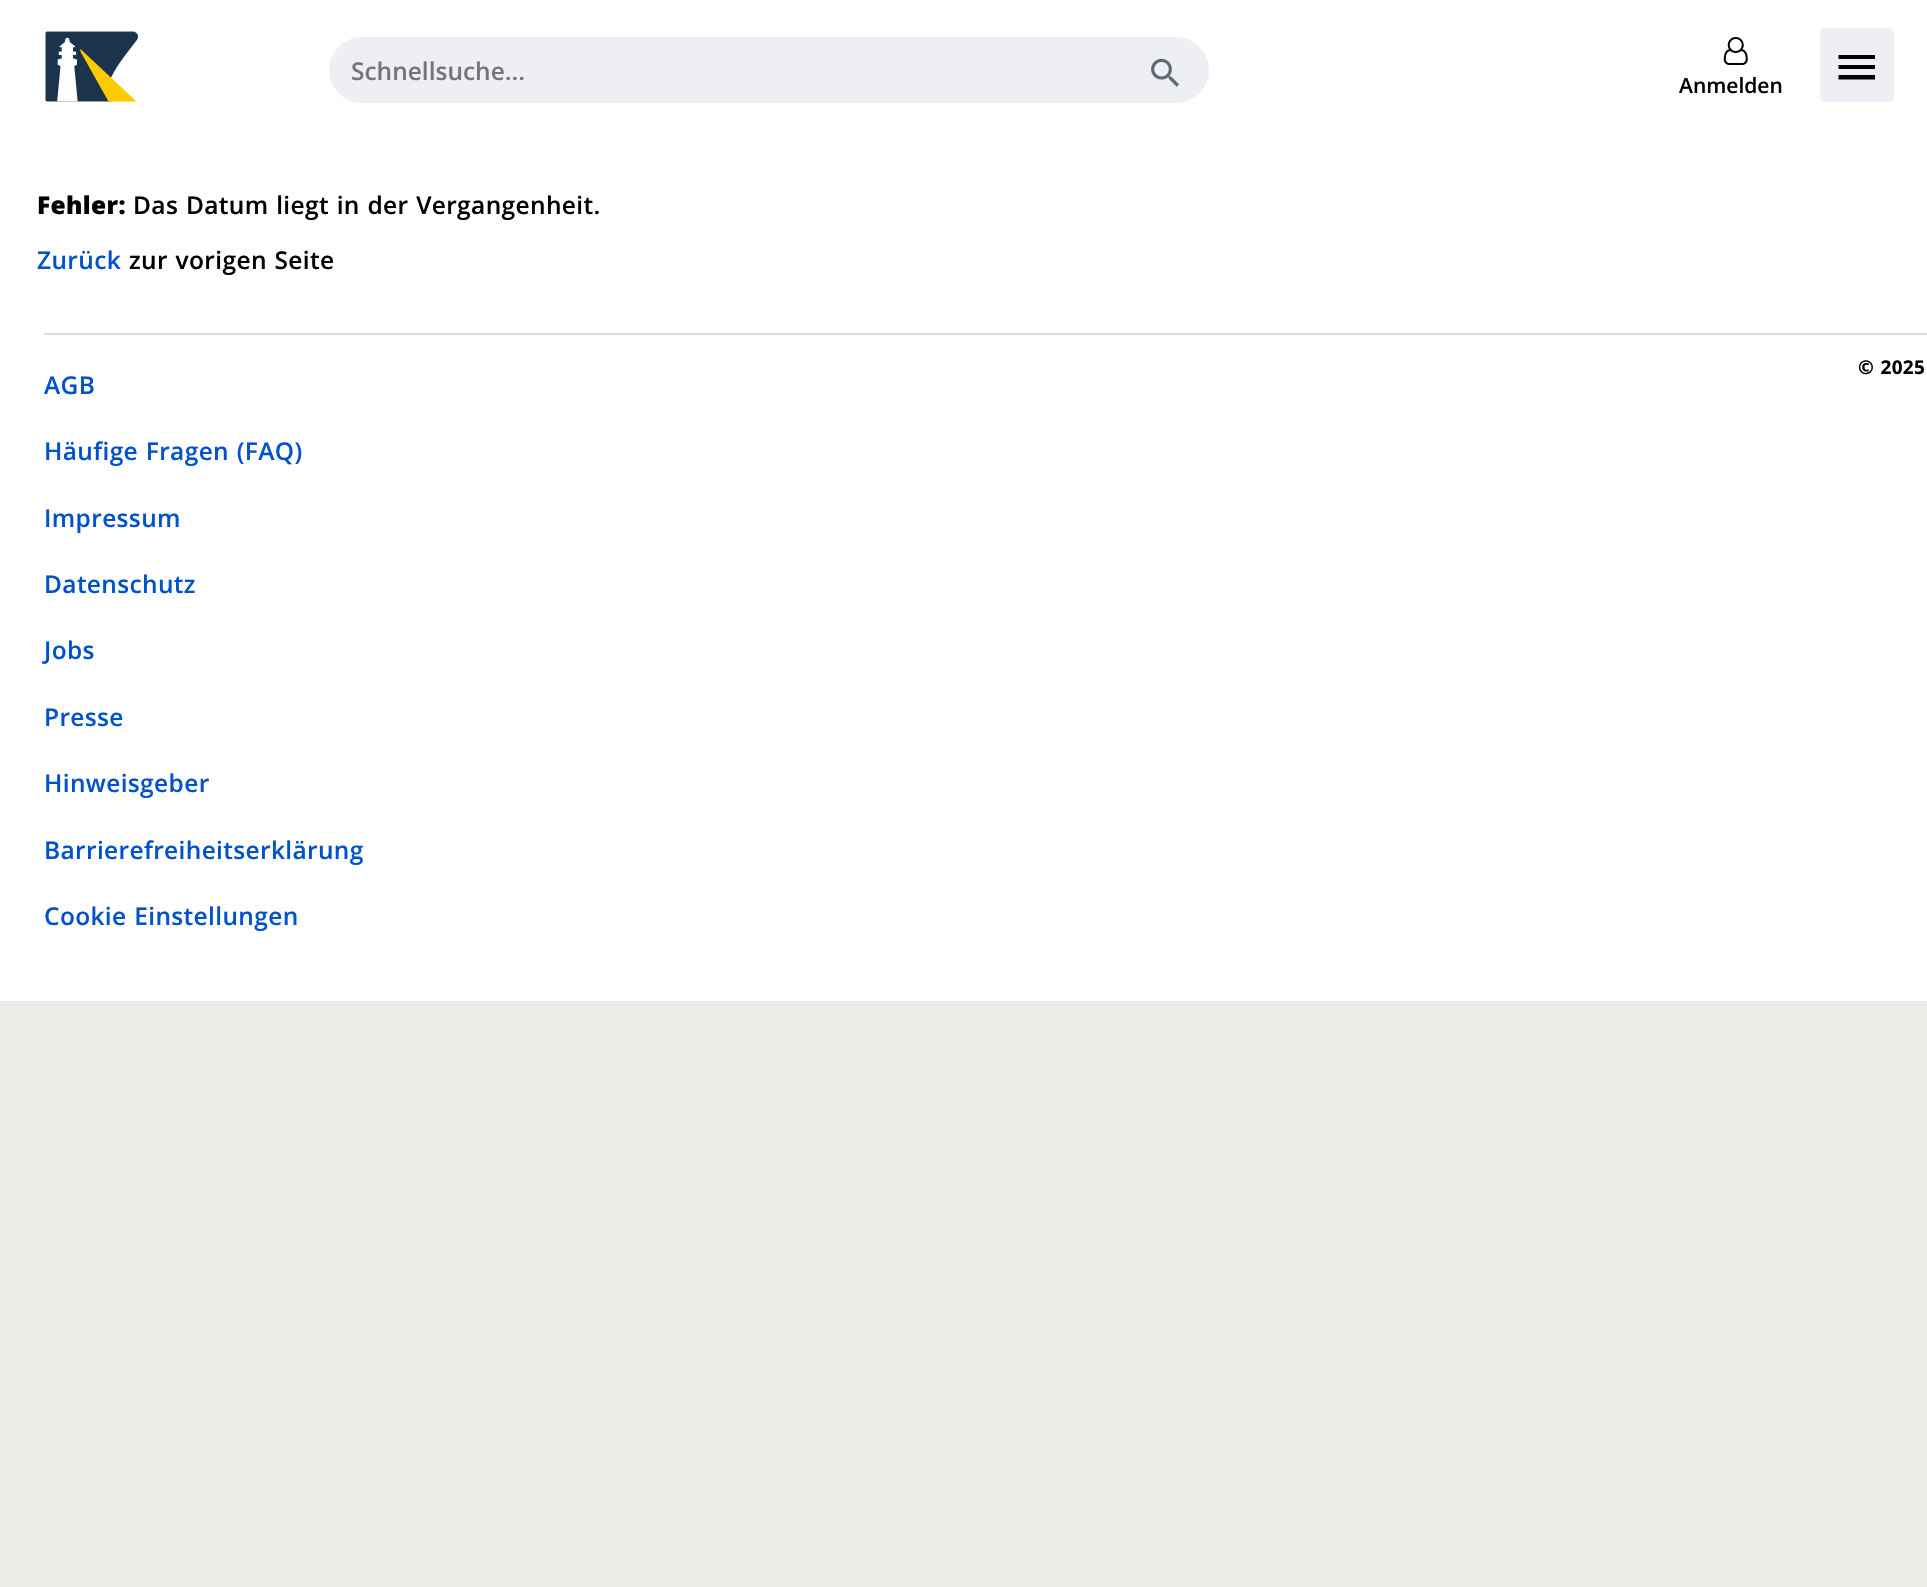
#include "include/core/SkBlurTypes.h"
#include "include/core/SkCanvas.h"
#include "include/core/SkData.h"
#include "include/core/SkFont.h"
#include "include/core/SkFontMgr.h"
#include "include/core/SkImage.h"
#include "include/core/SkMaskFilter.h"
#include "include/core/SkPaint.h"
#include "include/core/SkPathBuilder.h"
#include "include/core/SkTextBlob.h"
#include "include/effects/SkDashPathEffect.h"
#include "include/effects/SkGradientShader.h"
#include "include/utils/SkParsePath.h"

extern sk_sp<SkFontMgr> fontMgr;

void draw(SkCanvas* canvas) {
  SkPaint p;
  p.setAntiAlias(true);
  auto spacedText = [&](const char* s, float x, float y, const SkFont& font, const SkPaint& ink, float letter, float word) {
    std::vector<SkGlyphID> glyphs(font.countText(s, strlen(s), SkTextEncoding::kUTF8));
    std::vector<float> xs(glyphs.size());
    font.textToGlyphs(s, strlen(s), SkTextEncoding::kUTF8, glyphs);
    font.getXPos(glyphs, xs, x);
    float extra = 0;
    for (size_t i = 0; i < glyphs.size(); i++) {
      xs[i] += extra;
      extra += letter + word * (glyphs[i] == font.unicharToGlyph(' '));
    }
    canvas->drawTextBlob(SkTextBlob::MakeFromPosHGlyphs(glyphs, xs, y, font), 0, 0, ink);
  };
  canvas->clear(SkColorSetRGB(236, 235, 231));
  p.setColor(SK_ColorWHITE);
  canvas->drawRect(SkRect::MakeLTRB(0, 0, 1927, 1001), p);
  canvas->drawImageRect(SkImages::DeferredFromEncodedData(SkData::MakeFromFileName("images/1.png")), SkRect::MakeLTRB(45, 31, 138, 102), SkSamplingOptions());
  p.setColor(SkColorSetRGB(238, 239, 245));
  canvas->drawRoundRect(SkRect::MakeLTRB(329, 37, 1209, 103), 33, 33, p);
  canvas->drawImageRect(SkImages::DeferredFromEncodedData(SkData::MakeFromFileName("images/2.png")), SkRect::MakeLTRB(1151, 58, 1179, 87), SkSamplingOptions());
  canvas->drawImageRect(SkImages::DeferredFromEncodedData(SkData::MakeFromFileName("images/3.png")), SkRect::MakeLTRB(1723, 37, 1748, 65), SkSamplingOptions());
  canvas->drawRoundRect(SkRect::MakeLTRB(1820, 28, 1894, 102), 5, 5, p);
  p.setColor(SK_ColorBLACK);
  canvas->drawPath(SkPathBuilder().moveTo(1838.5f, 55).lineTo(1875, 55).lineTo(1875, 59).lineTo(1838.5f, 59).close().moveTo(1838.5f, 69).lineTo(1838.5f, 65).lineTo(1875, 65).lineTo(1875, 69).close().moveTo(1838.5f, 79.5f).lineTo(1838.5f, 75).lineTo(1875, 75).lineTo(1875, 79.5f).close().detach(), p);
  p.setColor(SkColorSetRGB(218, 218, 218));
  canvas->drawRect(SkRect::MakeLTRB(44, 333, 1927, 335), p);
  SkFont font1(fontMgr->matchFamilyStyle("Open Sans", SkFontStyle(600, SkFontStyle::kNormal_Width, SkFontStyle::kUpright_Slant)), 24.5f);
  font1.setSubpixel(true);
  p.setColor(SkColorSetRGB(117, 117, 117));
  canvas->drawString("Schnellsuche...", 351, 80, font1, p);
  SkFont font2(fontMgr->matchFamilyStyle("Open Sans", SkFontStyle(600, SkFontStyle::kNormal_Width, SkFontStyle::kUpright_Slant)), 21);
  font2.setSubpixel(true);
  p.setColor(SK_ColorBLACK);
  canvas->drawString("Anmelden", 1679, 93, font2, p);
  SkFont font3(fontMgr->matchFamilyStyle("Open Sans", SkFontStyle(800, SkFontStyle::kNormal_Width, SkFontStyle::kUpright_Slant)), 24.5f);
  font3.setSubpixel(true);
  spacedText("Fehler:", 37, 214, font3, p, 0.35f, 0);
  spacedText("Das Datum liegt in der Vergangenheit.", 133, 214, font1, p, 0.35f, 1);
  p.setColor(SkColorSetRGB(0, 82, 204));
  spacedText("Zurück", 37, 269, font1, p, 0.35f, 0);
  p.setColor(SK_ColorBLACK);
  spacedText("zur vorigen Seite", 129, 269, font1, p, 0.35f, 1);
  SkFont font4(fontMgr->matchFamilyStyle("Open Sans", SkFontStyle::Bold()), 19);
  font4.setSubpixel(true);
  spacedText("© 2025", 1858, 374, font4, p, 0.35f, 1);
  p.setColor(SkColorSetRGB(0, 82, 204));
  spacedText("AGB", 44, 394, font1, p, 0.35f, 0);
  spacedText("Häufige Fragen (FAQ)", 44, 460, font1, p, 0.35f, 1);
  spacedText("Impressum", 44, 527, font1, p, 0.35f, 0);
  spacedText("Datenschutz", 44, 593, font1, p, 0.35f, 0);
  spacedText("Jobs", 44, 659, font1, p, 0.35f, 0);
  spacedText("Presse", 44, 726, font1, p, 0.35f, 0);
  spacedText("Hinweisgeber", 44, 792, font1, p, 0.35f, 0);
  spacedText("Barrierefreiheitserklärung", 44, 859, font1, p, 0.35f, 0);
  spacedText("Cookie Einstellungen", 44, 925, font1, p, 0.35f, 1);
}
